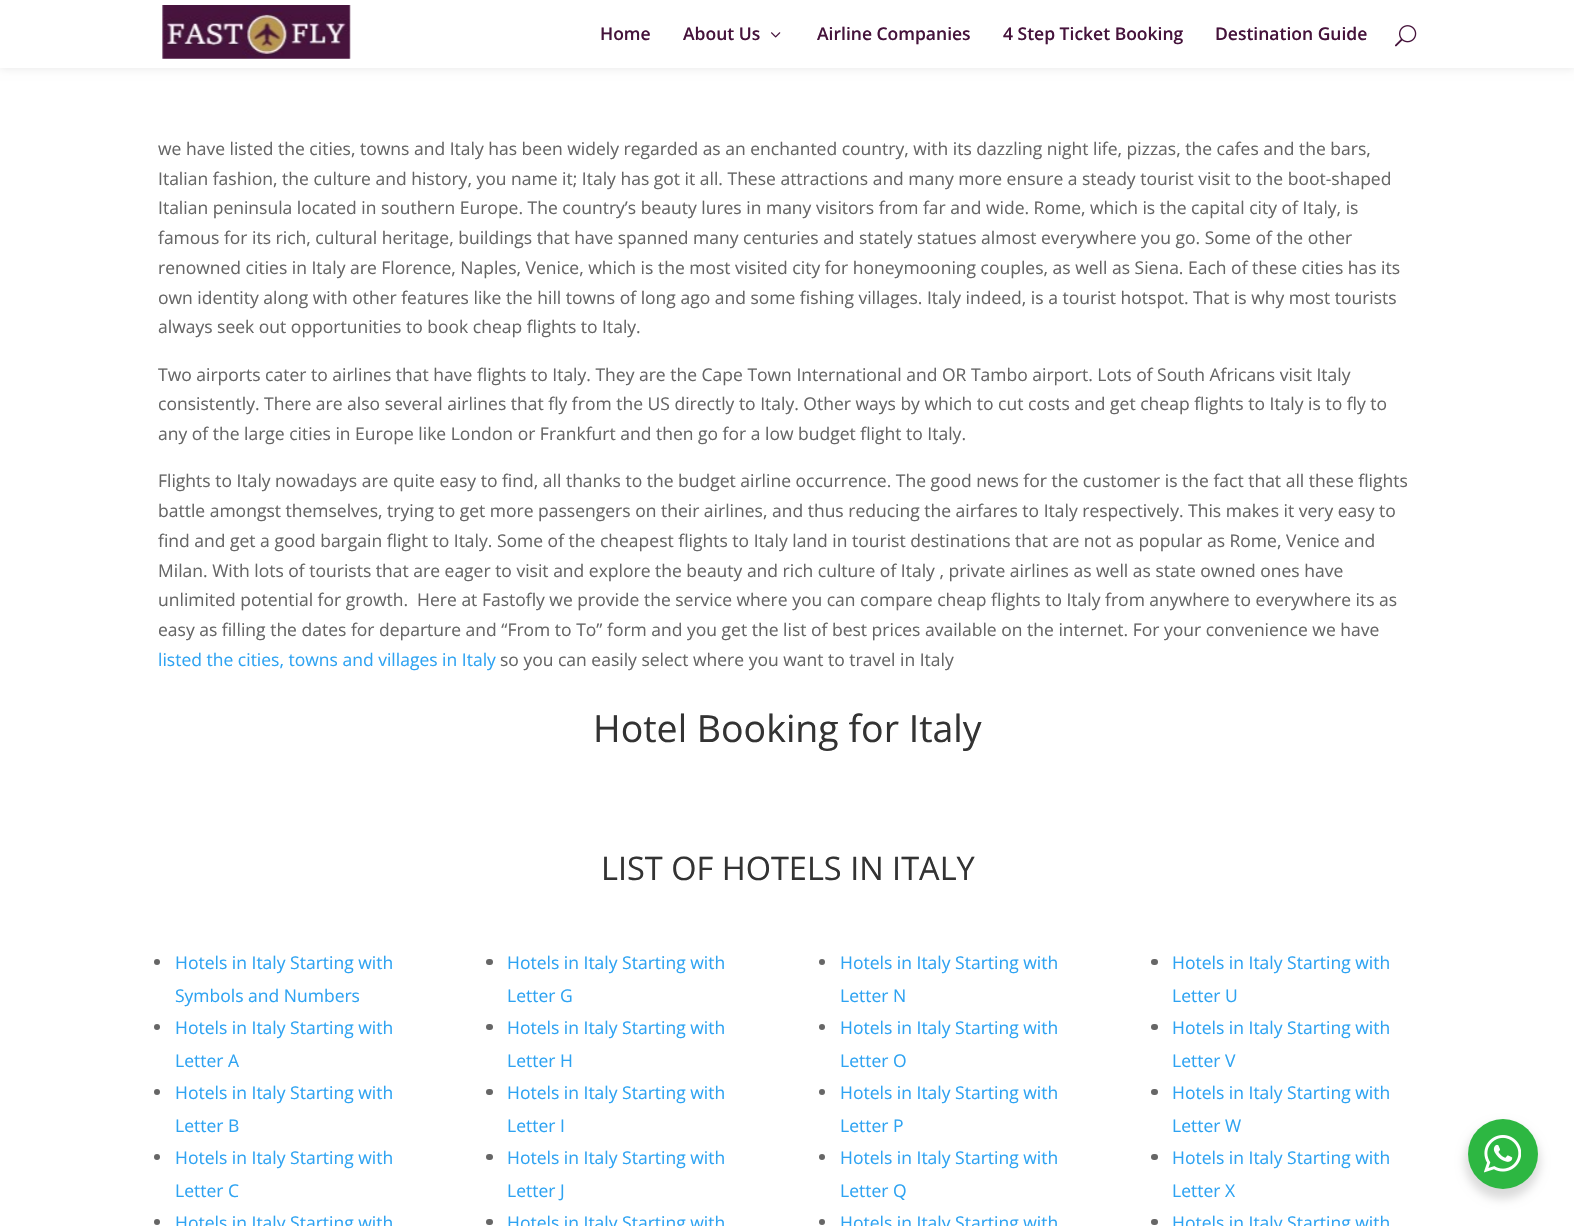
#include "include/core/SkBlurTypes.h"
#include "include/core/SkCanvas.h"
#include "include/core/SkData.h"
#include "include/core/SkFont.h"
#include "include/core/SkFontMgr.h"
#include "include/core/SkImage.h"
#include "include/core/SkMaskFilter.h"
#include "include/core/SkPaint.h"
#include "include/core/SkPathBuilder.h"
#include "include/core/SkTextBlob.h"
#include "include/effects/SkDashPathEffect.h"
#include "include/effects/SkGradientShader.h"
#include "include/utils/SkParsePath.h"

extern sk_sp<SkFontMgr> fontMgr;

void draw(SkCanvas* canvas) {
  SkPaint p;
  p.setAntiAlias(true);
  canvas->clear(SK_ColorWHITE);
  p.setColor(SkColorSetARGB(26, 0, 0, 0));
  p.setMaskFilter(SkMaskFilter::MakeBlur(kNormal_SkBlurStyle, 4.5f));
  canvas->drawRect(SkRect::MakeLTRB(0, 0, 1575, 68), p);
  p.setMaskFilter(nullptr);
  p.setColor(SK_ColorWHITE);
  canvas->drawRect(SkRect::MakeLTRB(0, 0, 1574, 68), p);
  canvas->drawImageRect(SkImages::DeferredFromEncodedData(SkData::MakeFromFileName("images/1.png")), SkRect::MakeLTRB(162, 5, 351, 59), SkSamplingOptions());
  canvas->drawImageRect(SkImages::DeferredFromEncodedData(SkData::MakeFromFileName("images/2.png")), SkRect::MakeLTRB(771, 32, 781, 38), SkSamplingOptions());
  canvas->drawImageRect(SkImages::DeferredFromEncodedData(SkData::MakeFromFileName("images/3.png")), SkRect::MakeLTRB(1395, 25, 1417, 47), SkSamplingOptions());
  p.setColor(SkColorSetRGB(102, 102, 102));
  canvas->drawCircle(157, 962, 3, p);
  canvas->drawCircle(157, 1027, 3, p);
  canvas->drawCircle(157, 1092, 3, p);
  canvas->drawCircle(157, 1157, 3, p);
  canvas->drawCircle(157, 1222, 3, p);
  canvas->drawRoundRect(SkRect::MakeLTRB(486, 959, 493, 965), 3, 3, p);
  canvas->drawRoundRect(SkRect::MakeLTRB(486, 1024, 493, 1030), 3, 3, p);
  canvas->drawRoundRect(SkRect::MakeLTRB(486, 1089, 493, 1095), 3, 3, p);
  canvas->drawRoundRect(SkRect::MakeLTRB(486, 1154, 493, 1160), 3, 3, p);
  canvas->drawRoundRect(SkRect::MakeLTRB(486, 1219, 493, 1225), 3, 3, p);
  canvas->drawCircle(822, 962, 3, p);
  canvas->drawCircle(822, 1027, 3, p);
  canvas->drawCircle(822, 1092, 3, p);
  canvas->drawCircle(822, 1157, 3, p);
  canvas->drawCircle(822, 1222, 3, p);
  canvas->drawRoundRect(SkRect::MakeLTRB(1151, 959, 1158, 965), 3, 3, p);
  canvas->drawRoundRect(SkRect::MakeLTRB(1151, 1024, 1158, 1030), 3, 3, p);
  canvas->drawRoundRect(SkRect::MakeLTRB(1151, 1089, 1158, 1095), 3, 3, p);
  canvas->drawRoundRect(SkRect::MakeLTRB(1151, 1154, 1158, 1160), 3, 3, p);
  canvas->drawRoundRect(SkRect::MakeLTRB(1151, 1219, 1158, 1225), 3, 3, p);
  p.setColor(SkColorSetARGB(36, 0, 0, 0));
  p.setMaskFilter(SkMaskFilter::MakeBlur(kNormal_SkBlurStyle, 5));
  canvas->drawRoundRect(SkRect::MakeLTRB(1465, 1124, 1540, 1199), 37.5f, 37.5f, p);
  p.setMaskFilter(nullptr);
  p.setColor(SkColorSetRGB(45, 183, 66));
  canvas->drawCircle(1503, 1154, 35, p);
  canvas->drawImageRect(SkImages::DeferredFromEncodedData(SkData::MakeFromFileName("images/4.png")), SkRect::MakeLTRB(1484, 1135, 1521, 1173), SkSamplingOptions());
  SkFont font1(fontMgr->matchFamilyStyle("Open Sans", SkFontStyle(600, SkFontStyle::kNormal_Width, SkFontStyle::kUpright_Slant)), 17.5f);
  font1.setSubpixel(true);
  p.setColor(SkColorSetRGB(69, 19, 59));
  canvas->drawString("Home", 600, 40, font1, p);
  canvas->drawString("About Us", 683, 40, font1, p);
  canvas->drawString("Airline Companies", 817, 40, font1, p);
  canvas->drawString("4 Step Ticket Booking", 1003, 40, font1, p);
  canvas->drawString("Destination Guide", 1215, 40, font1, p);
  SkFont font2(fontMgr->matchFamilyStyle("Open Sans", SkFontStyle::Normal()), 17.5f);
  font2.setSubpixel(true);
  p.setColor(SkColorSetRGB(102, 102, 102));
  canvas->drawString("we have listed the cities, towns and Italy has been widely regarded as an enchanted country, with its dazzling night life, pizzas, the cafes and the bars,", 158, 155, font2, p);
  canvas->drawString("Italian fashion, the culture and history, you name it; Italy has got it all. These attractions and many more ensure a steady tourist visit to the boot-shaped", 158, 185, font2, p);
  canvas->drawString("Italian peninsula located in southern Europe. The country’s beauty lures in many visitors from far and wide. Rome, which is the capital city of Italy, is", 158, 214, font2, p);
  canvas->drawString("famous for its rich, cultural heritage, buildings that have spanned many centuries and stately statues almost everywhere you go. Some of the other", 158, 244, font2, p);
  canvas->drawString("renowned cities in Italy are Florence, Naples, Venice, which is the most visited city for honeymooning couples, as well as Siena. Each of these cities has its", 158, 274, font2, p);
  canvas->drawString("own identity along with other features like the hill towns of long ago and some fishing villages. Italy indeed, is a tourist hotspot. That is why most tourists", 158, 304, font2, p);
  canvas->drawString("always seek out opportunities to book cheap flights to Italy.", 158, 333, font2, p);
  canvas->drawString("Two airports cater to airlines that have flights to Italy. They are the Cape Town International and OR Tambo airport. Lots of South Africans visit Italy", 158, 381, font2, p);
  canvas->drawString("consistently. There are also several airlines that fly from the US directly to Italy. Other ways by which to cut costs and get cheap flights to Italy is to fly to", 158, 410, font2, p);
  canvas->drawString("any of the large cities in Europe like London or Frankfurt and then go for a low budget flight to Italy.", 158, 440, font2, p);
  canvas->drawString("Flights to Italy nowadays are quite easy to find, all thanks to the budget airline occurrence. The good news for the customer is the fact that all these flights", 158, 487, font2, p);
  canvas->drawString("battle amongst themselves, trying to get more passengers on their airlines, and thus reducing the airfares to Italy respectively. This makes it very easy to", 158, 517, font2, p);
  canvas->drawString("find and get a good bargain flight to Italy. Some of the cheapest flights to Italy land in tourist destinations that are not as popular as Rome, Venice and", 158, 547, font2, p);
  canvas->drawString("Milan. With lots of tourists that are eager to visit and explore the beauty and rich culture of Italy , private airlines as well as state owned ones have", 158, 577, font2, p);
  canvas->drawString("unlimited potential for growth.  Here at Fastofly we provide the service where you can compare cheap flights to Italy from anywhere to everywhere its as", 158, 606, font2, p);
  canvas->drawString("easy as filling the dates for departure and “From to To” form and you get the list of best prices available on the internet. For your convenience we have", 158, 636, font2, p);
  p.setColor(SkColorSetRGB(46, 163, 242));
  canvas->drawString("listed the cities, towns and villages in Italy", 158, 666, font2, p);
  p.setColor(SkColorSetRGB(102, 102, 102));
  canvas->drawString("so you can easily select where you want to travel in Italy", 500, 666, font2, p);
  SkFont font3(fontMgr->matchFamilyStyle("Open Sans", SkFontStyle::Normal()), 37.5f);
  font3.setSubpixel(true);
  p.setColor(SkColorSetRGB(51, 51, 51));
  canvas->drawString("Hotel Booking for Italy", 593, 742, font3, p);
  SkFont font4(fontMgr->matchFamilyStyle("Open Sans", SkFontStyle::Normal()), 32.5f);
  font4.setSubpixel(true);
  canvas->drawString("LIST OF HOTELS IN ITALY", 601, 880, font4, p);
  p.setColor(SkColorSetRGB(46, 163, 242));
  canvas->drawString("Hotels in Italy Starting with", 175, 969, font2, p);
  canvas->drawString("Symbols and Numbers", 175, 1002, font2, p);
  canvas->drawString("Hotels in Italy Starting with", 175, 1034, font2, p);
  canvas->drawString("Letter A", 175, 1067, font2, p);
  canvas->drawString("Hotels in Italy Starting with", 175, 1099, font2, p);
  canvas->drawString("Letter B", 175, 1132, font2, p);
  canvas->drawString("Hotels in Italy Starting with", 175, 1164, font2, p);
  canvas->drawString("Letter C", 175, 1197, font2, p);
  canvas->drawString("Hotels in Italy Starting with", 175, 1229, font2, p);
  canvas->drawString("Hotels in Italy Starting with", 507, 969, font2, p);
  canvas->drawString("Letter G", 507, 1002, font2, p);
  canvas->drawString("Hotels in Italy Starting with", 507, 1034, font2, p);
  canvas->drawString("Letter H", 507, 1067, font2, p);
  canvas->drawString("Hotels in Italy Starting with", 507, 1099, font2, p);
  canvas->drawString("Letter I", 507, 1132, font2, p);
  canvas->drawString("Hotels in Italy Starting with", 507, 1164, font2, p);
  canvas->drawString("Letter J", 507, 1197, font2, p);
  canvas->drawString("Hotels in Italy Starting with", 507, 1229, font2, p);
  canvas->drawString("Hotels in Italy Starting with", 840, 969, font2, p);
  canvas->drawString("Letter N", 840, 1002, font2, p);
  canvas->drawString("Hotels in Italy Starting with", 840, 1034, font2, p);
  canvas->drawString("Letter O", 840, 1067, font2, p);
  canvas->drawString("Hotels in Italy Starting with", 840, 1099, font2, p);
  canvas->drawString("Letter P", 840, 1132, font2, p);
  canvas->drawString("Hotels in Italy Starting with", 840, 1164, font2, p);
  canvas->drawString("Letter Q", 840, 1197, font2, p);
  canvas->drawString("Hotels in Italy Starting with", 840, 1229, font2, p);
  canvas->drawString("Hotels in Italy Starting with", 1172, 969, font2, p);
  canvas->drawString("Letter U", 1172, 1002, font2, p);
  canvas->drawString("Hotels in Italy Starting with", 1172, 1034, font2, p);
  canvas->drawString("Letter V", 1172, 1067, font2, p);
  canvas->drawString("Hotels in Italy Starting with", 1172, 1099, font2, p);
  canvas->drawString("Letter W", 1172, 1132, font2, p);
  canvas->drawString("Hotels in Italy Starting with", 1172, 1164, font2, p);
  canvas->drawString("Letter X", 1172, 1197, font2, p);
  canvas->drawString("Hotels in Italy Starting with", 1172, 1229, font2, p);
}
